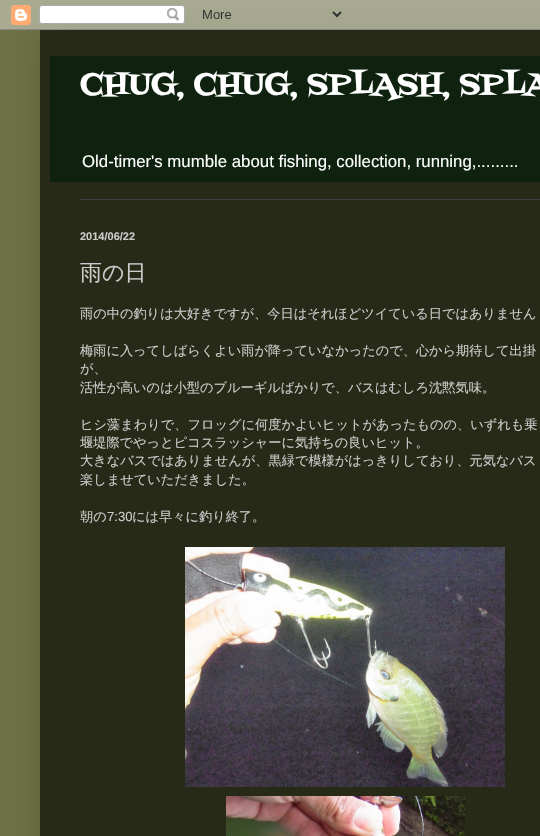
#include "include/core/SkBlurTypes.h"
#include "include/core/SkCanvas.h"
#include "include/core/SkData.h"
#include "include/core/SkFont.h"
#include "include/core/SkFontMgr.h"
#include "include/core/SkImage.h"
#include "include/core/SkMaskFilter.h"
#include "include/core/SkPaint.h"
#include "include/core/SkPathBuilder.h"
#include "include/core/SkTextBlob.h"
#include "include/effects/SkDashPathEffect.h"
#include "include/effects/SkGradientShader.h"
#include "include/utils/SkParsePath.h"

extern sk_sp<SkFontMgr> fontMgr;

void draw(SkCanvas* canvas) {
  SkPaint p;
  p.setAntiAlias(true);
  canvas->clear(SkColorSetRGB(110, 114, 70));
  p.setColor(SkColorSetARGB(38, 0, 0, 0));
  p.setMaskFilter(SkMaskFilter::MakeBlur(kNormal_SkBlurStyle, 20));
  canvas->drawRect(SkRect::MakeLTRB(40, 30, 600, 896), p);
  p.setMaskFilter(nullptr);
  canvas->drawImageRect(SkImages::DeferredFromEncodedData(SkData::MakeFromFileName("images/1.png")), SkRect::MakeLTRB(0, 0, 540, 30), SkSamplingOptions());
  p.setColor(SkColorSetRGB(39, 42, 23));
  canvas->drawRect(SkRect::MakeLTRB(40, 30, 540, 836), p);
  p.setColor(SkColorSetRGB(15, 34, 15));
  canvas->drawRect(SkRect::MakeLTRB(50, 56, 540, 182), p);
  p.setColor(SkColorSetRGB(64, 64, 64));
  canvas->drawRect(SkRect::MakeLTRB(80, 199, 540, 200), p);
  canvas->drawImageRect(SkImages::DeferredFromEncodedData(SkData::MakeFromFileName("images/2.png")), SkRect::MakeLTRB(185, 547, 505, 787), SkSamplingOptions());
  canvas->drawImageRect(SkImages::DeferredFromEncodedData(SkData::MakeFromFileName("images/3.png")), SkRect::MakeLTRB(226, 796, 465, 836), SkSamplingOptions());
  SkFont font1(fontMgr->matchFamilyStyle("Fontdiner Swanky", SkFontStyle::Normal()), 31);
  font1.setSubpixel(true);
  p.setColor(SK_ColorWHITE);
  canvas->drawString("CHUG, CHUG, SPLASH, SPLA", 80, 94, font1, p);
  SkFont font2(fontMgr->matchFamilyStyle("Liberation Sans", SkFontStyle::Normal()), 16.8f);
  font2.setSubpixel(true);
  canvas->drawString("Old-timer's mumble about fishing, collection, running,.........", 82, 167, font2, p);
  SkFont font3(fontMgr->matchFamilyStyle("Liberation Sans", SkFontStyle::Bold()), 11);
  font3.setSubpixel(true);
  p.setColor(SkColorSetRGB(204, 204, 204));
  canvas->drawString("2014/06/22", 80, 240, font3, p);
  SkFont font4(fontMgr->matchFamilyStyle("WenQuanYi Zen Hei", SkFontStyle(500, SkFontStyle::kNormal_Width, SkFontStyle::kUpright_Slant)), 22);
  font4.setSubpixel(true);
  canvas->drawString("雨の日", 80, 280, font4, p);
  SkFont font5(fontMgr->matchFamilyStyle("WenQuanYi Zen Hei", SkFontStyle(500, SkFontStyle::kNormal_Width, SkFontStyle::kUpright_Slant)), 13.2f);
  font5.setSubpixel(true);
  canvas->drawString("雨の中の釣りは大好きですが、今日はそれほどツイている日ではありません", 80, 318, font5, p);
  canvas->drawString("梅雨に入ってしばらくよい雨が降っていなかったので、心から期待して出掛", 80, 355, font5, p);
  canvas->drawString("が、", 80, 373, font5, p);
  canvas->drawString("活性が高いのは小型のブルーギルばかりで、バスはむしろ沈黙気味。", 80, 392, font5, p);
  canvas->drawString("ヒシ藻まわりで、フロッグに何度かよいヒットがあったものの、いずれも乗", 80, 429, font5, p);
  canvas->drawString("堰堤際でやっとピコスラッシャーに気持ちの良いヒット。", 80, 447, font5, p);
  canvas->drawString("大きなバスではありませんが、黒緑で模様がはっきりしており、元気なバス", 80, 465, font5, p);
  canvas->drawString("楽しませていただきました。", 80, 484, font5, p);
  canvas->drawString("朝の", 80, 521, font5, p);
  SkFont font6(fontMgr->matchFamilyStyle("Liberation Sans", SkFontStyle::Normal()), 13.2f);
  font6.setSubpixel(true);
  canvas->drawString("7:30", 107, 521, font6, p);
  canvas->drawString("には早々に釣り終了。", 132, 521, font5, p);
}
